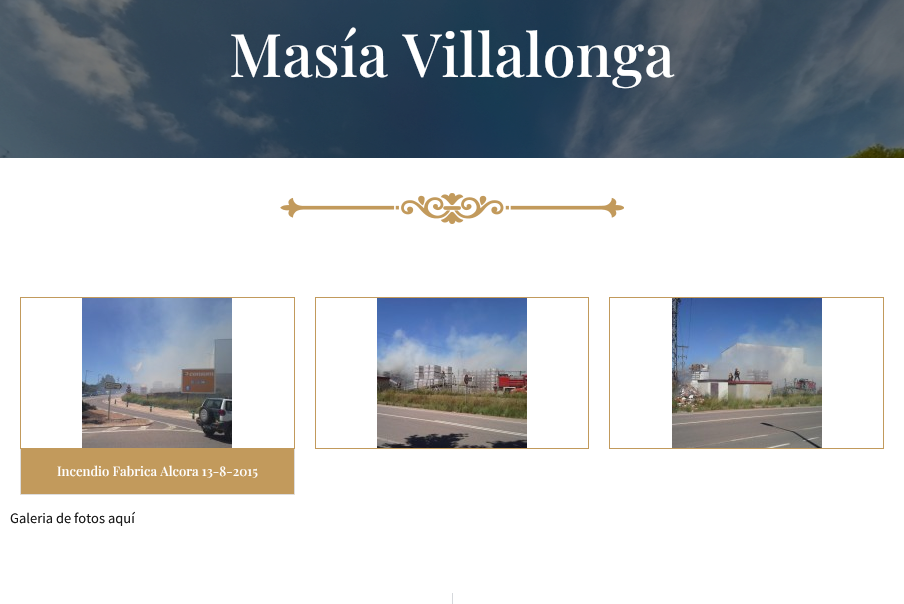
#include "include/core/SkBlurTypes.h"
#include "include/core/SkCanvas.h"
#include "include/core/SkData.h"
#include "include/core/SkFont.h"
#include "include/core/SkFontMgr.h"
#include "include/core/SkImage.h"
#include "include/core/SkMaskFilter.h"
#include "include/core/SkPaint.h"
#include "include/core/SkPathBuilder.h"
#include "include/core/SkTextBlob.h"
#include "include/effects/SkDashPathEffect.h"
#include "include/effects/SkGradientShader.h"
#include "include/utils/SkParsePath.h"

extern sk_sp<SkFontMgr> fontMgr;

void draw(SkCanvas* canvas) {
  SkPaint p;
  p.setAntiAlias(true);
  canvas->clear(SK_ColorWHITE);
  canvas->drawImageRect(SkImages::DeferredFromEncodedData(SkData::MakeFromFileName("images/1.png")), SkRect::MakeLTRB(0, 0, 904, 158), SkSamplingOptions());
  canvas->drawImageRect(SkImages::DeferredFromEncodedData(SkData::MakeFromFileName("images/2.png")), SkRect::MakeLTRB(280, 193, 624, 224), SkSamplingOptions());
  p.setStyle(SkPaint::kStroke_Style);
  p.setStrokeWidth(1);
  p.setColor(SkColorSetRGB(194, 154, 92));
  canvas->drawRect(SkRect::MakeLTRB(315.5f, 297.5f, 588.5f, 448.5f), p);
  canvas->drawImageRect(SkImages::DeferredFromEncodedData(SkData::MakeFromFileName("images/3.png")), SkRect::MakeLTRB(377, 298, 527, 448), SkSamplingOptions());
  canvas->drawRect(SkRect::MakeLTRB(609.5f, 297.5f, 883.5f, 448.5f), p);
  canvas->drawImageRect(SkImages::DeferredFromEncodedData(SkData::MakeFromFileName("images/4.png")), SkRect::MakeLTRB(672, 298, 822, 448), SkSamplingOptions());
  canvas->drawRect(SkRect::MakeLTRB(20.5f, 297.5f, 294.5f, 448.5f), p);
  canvas->drawImageRect(SkImages::DeferredFromEncodedData(SkData::MakeFromFileName("images/5.png")), SkRect::MakeLTRB(82, 298, 232, 448), SkSamplingOptions());
  p.setStyle(SkPaint::kFill_Style);
  canvas->drawPath(SkPathBuilder().moveTo(20, 449).lineTo(295, 449).lineTo(295, 493).cubicTo(295, 494, 294, 495, 293, 495).lineTo(22, 495).cubicTo(21, 495, 20, 494, 20, 493).close().detach(), p);
  p.setColor(SkColorSetRGB(221, 221, 221));
  canvas->drawRect(SkRect::MakeLTRB(294, 449, 295, 494), p);
  canvas->drawRect(SkRect::MakeLTRB(21, 494, 294, 495), p);
  canvas->drawRect(SkRect::MakeLTRB(20, 449, 21, 494), p);
  p.setColor(SkColorSetRGB(213, 216, 220));
  canvas->drawRect(SkRect::MakeLTRB(452, 593, 453, 604), p);
  SkFont font1(fontMgr->matchFamilyStyle("Playfair Display", SkFontStyle(500, SkFontStyle::kNormal_Width, SkFontStyle::kUpright_Slant)), 60);
  font1.setSubpixel(true);
  p.setColor(SK_ColorWHITE);
  canvas->drawString("Masía Villalonga", 229, 77, font1, p);
  SkFont font2(fontMgr->matchFamilyStyle("Playfair Display", SkFontStyle(500, SkFontStyle::kNormal_Width, SkFontStyle::kUpright_Slant)), 13.1f);
  font2.setSubpixel(true);
  canvas->drawString("Incendio Fabrica Alcora 13-8-2015", 57, 476, font2, p);
  SkFont font3(fontMgr->matchFamilyStyle("Source Sans Pro", SkFontStyle::Normal()), 14.5f);
  font3.setSubpixel(true);
  p.setColor(SkColorSetRGB(26, 26, 26));
  canvas->drawString("Galeria de fotos aquí", 10, 523, font3, p);
}
